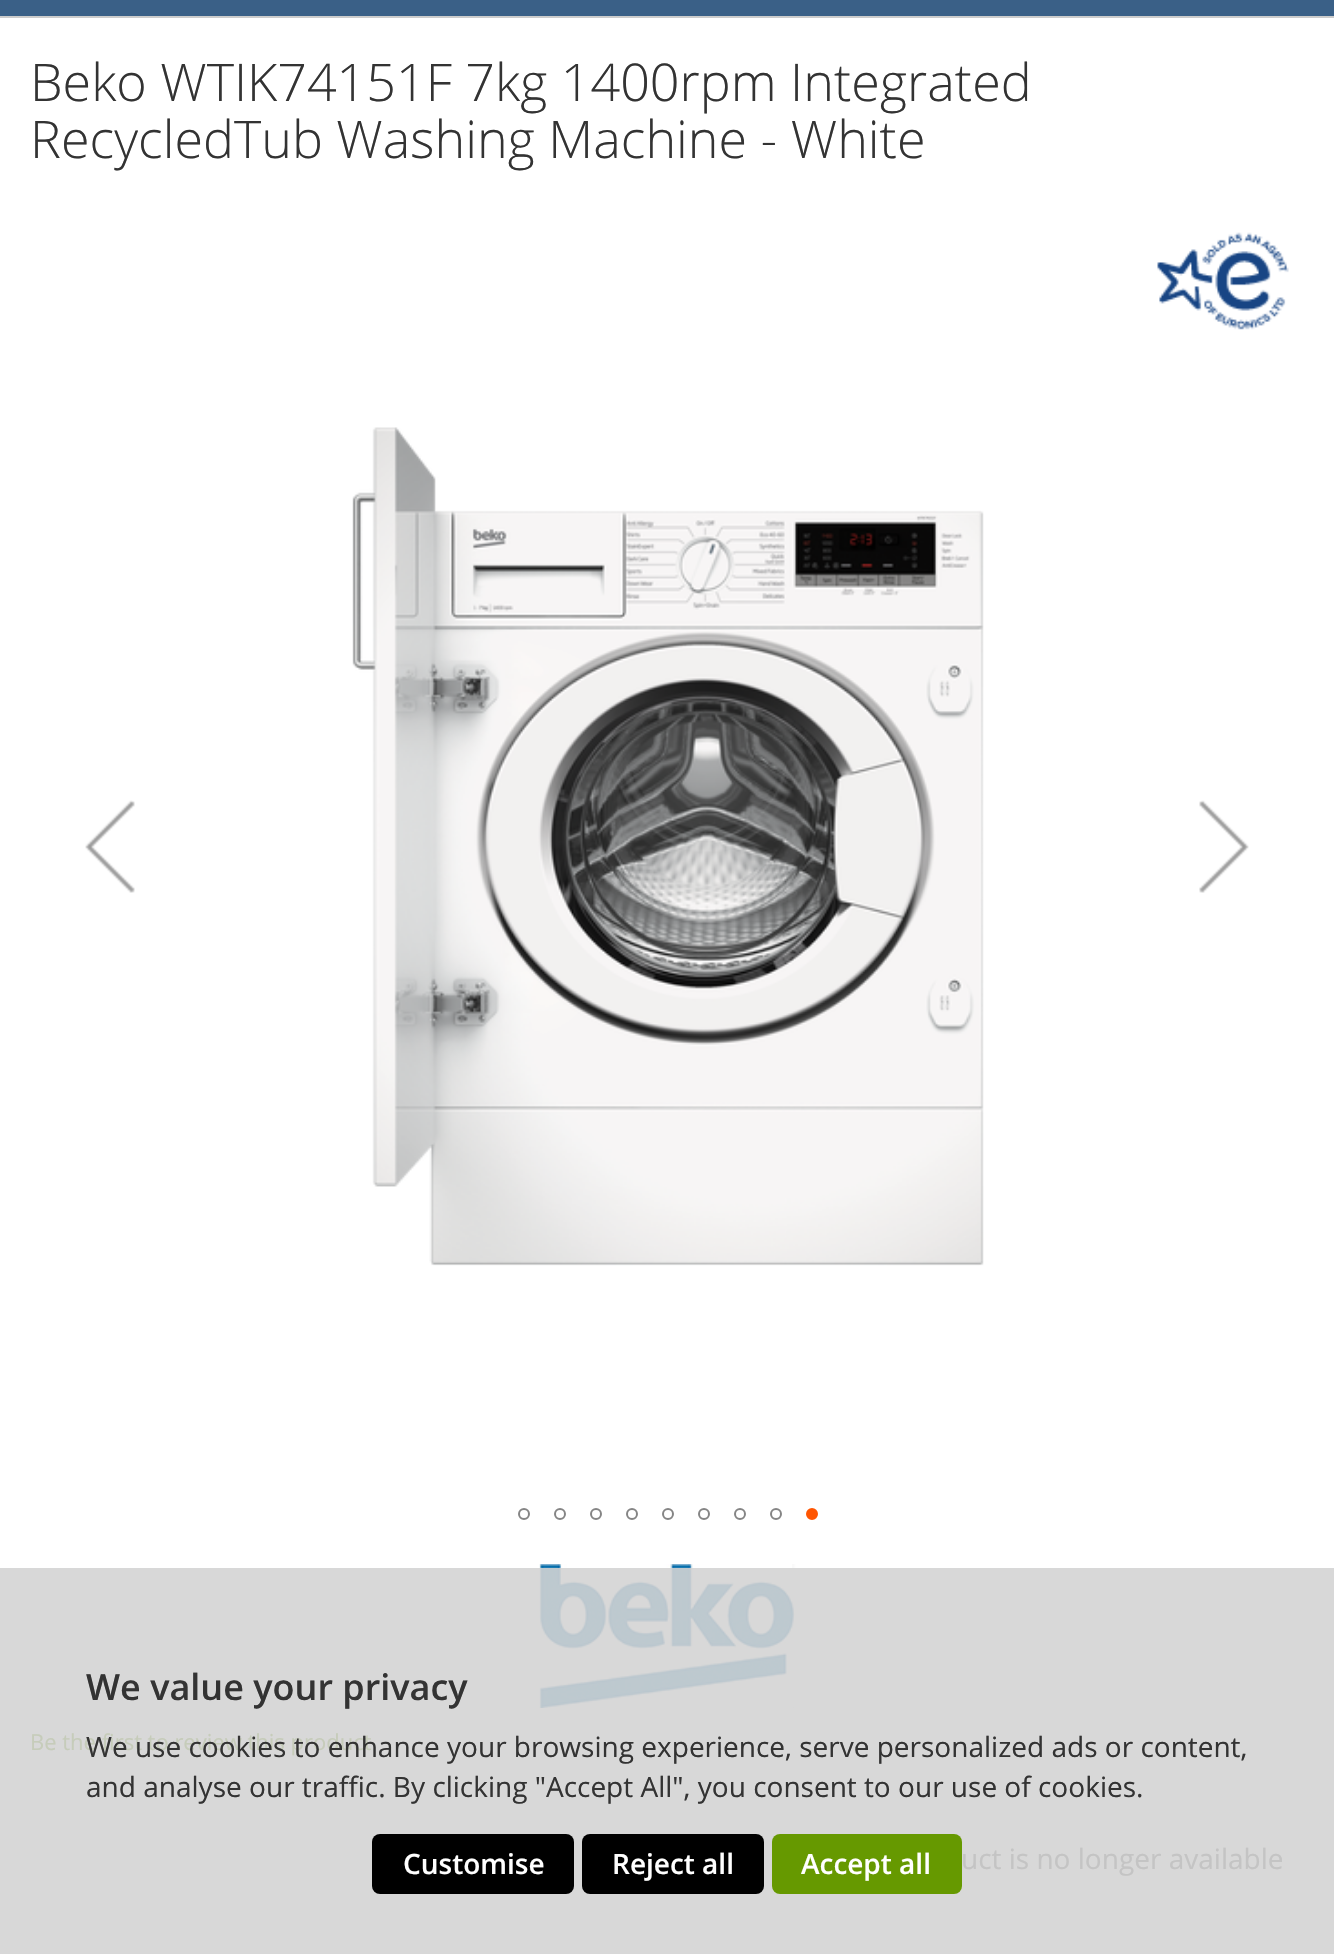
#include "include/core/SkBlurTypes.h"
#include "include/core/SkCanvas.h"
#include "include/core/SkData.h"
#include "include/core/SkFont.h"
#include "include/core/SkFontMgr.h"
#include "include/core/SkImage.h"
#include "include/core/SkMaskFilter.h"
#include "include/core/SkPaint.h"
#include "include/core/SkPathBuilder.h"
#include "include/core/SkTextBlob.h"
#include "include/effects/SkDashPathEffect.h"
#include "include/effects/SkGradientShader.h"
#include "include/utils/SkParsePath.h"

extern sk_sp<SkFontMgr> fontMgr;

void draw(SkCanvas* canvas) {
  SkPaint p;
  p.setAntiAlias(true);
  canvas->clear(SK_ColorWHITE);
  p.setColor(SkColorSetRGB(216, 216, 216));
  canvas->drawRect(SkRect::MakeLTRB(0, 1568, 1334, 1954), p);
  p.setColor(SkColorSetRGB(58, 96, 135));
  canvas->drawRect(SkRect::MakeLTRB(0, 0, 1334, 16), p);
  p.setColor(SkColorSetRGB(204, 204, 204));
  canvas->drawRect(SkRect::MakeLTRB(0, 16, 1334, 18), p);
  canvas->drawImageRect(SkImages::DeferredFromEncodedData(SkData::MakeFromFileName("images/1.png")), SkRect::MakeLTRB(1157, 232, 1289, 330), SkSamplingOptions());
  canvas->drawImageRect(SkImages::DeferredFromEncodedData(SkData::MakeFromFileName("images/2.png")), SkRect::MakeLTRB(85, 800, 135, 893), SkSamplingOptions());
  canvas->drawImageRect(SkImages::DeferredFromEncodedData(SkData::MakeFromFileName("images/3.png")), SkRect::MakeLTRB(352, 427, 984, 1266), SkSamplingOptions());
  canvas->drawImageRect(SkImages::DeferredFromEncodedData(SkData::MakeFromFileName("images/4.png")), SkRect::MakeLTRB(1199, 800, 1249, 893), SkSamplingOptions());
  p.setStyle(SkPaint::kStroke_Style);
  p.setStrokeWidth(2);
  p.setColor(SkColorSetRGB(133, 133, 133));
  canvas->drawCircle(524, 1514, 5, p);
  canvas->drawCircle(560, 1514, 5, p);
  canvas->drawCircle(596, 1514, 5, p);
  canvas->drawCircle(632, 1514, 5, p);
  canvas->drawCircle(668, 1514, 5, p);
  canvas->drawCircle(704, 1514, 5, p);
  canvas->drawCircle(740, 1514, 5, p);
  canvas->drawCircle(776, 1514, 5, p);
  p.setStyle(SkPaint::kFill_Style);
  p.setColor(SkColorSetRGB(255, 85, 1));
  canvas->drawCircle(812, 1514, 5, p);
  p.setStyle(SkPaint::kStroke_Style);
  canvas->drawCircle(812, 1514, 5, p);
  canvas->drawImageRect(SkImages::DeferredFromEncodedData(SkData::MakeFromFileName("images/5.png")), SkRect::MakeLTRB(539, 1564, 798, 1708), SkSamplingOptions());
  p.setStyle(SkPaint::kFill_Style);
  p.setColor(SK_ColorBLACK);
  canvas->drawRoundRect(SkRect::MakeLTRB(372, 1834, 574, 1894), 8, 8, p);
  canvas->drawRoundRect(SkRect::MakeLTRB(582, 1834, 764, 1894), 8, 8, p);
  p.setColor(SkColorSetRGB(102, 153, 0));
  canvas->drawRoundRect(SkRect::MakeLTRB(772, 1834, 962, 1894), 8, 8, p);
  SkFont font1(fontMgr->matchFamilyStyle("Open Sans", SkFontStyle(300, SkFontStyle::kNormal_Width, SkFontStyle::kUpright_Slant)), 52);
  font1.setSubpixel(true);
  p.setColor(SkColorSetRGB(51, 51, 51));
  canvas->drawString("Beko WTIK74151F 7kg 1400rpm Integrated", 30, 101, font1, p);
  canvas->drawString("RecycledTub Washing Machine - White", 30, 158, font1, p);
  SkFont font2(fontMgr->matchFamilyStyle("Open Sans", SkFontStyle::Normal()), 22);
  font2.setSubpixel(true);
  p.setColor(SkColorSetRGB(198, 204, 186));
  canvas->drawString("Be the first to review this product", 30, 1750, font2, p);
  SkFont font3(fontMgr->matchFamilyStyle("Open Sans", SkFontStyle::Normal()), 28);
  font3.setSubpixel(true);
  p.setColor(SkColorSetRGB(196, 196, 196));
  canvas->drawString("uct is no longer available", 961, 1869, font3, p);
  SkFont font4(fontMgr->matchFamilyStyle("Open Sans", SkFontStyle(600, SkFontStyle::kNormal_Width, SkFontStyle::kUpright_Slant)), 36);
  font4.setSubpixel(true);
  p.setColor(SkColorSetRGB(51, 51, 51));
  canvas->drawString("We value your privacy", 86, 1700, font4, p);
  canvas->drawString("We use cookies to enhance your browsing experience, serve personalized ads or content,", 86, 1757, font3, p);
  canvas->drawString("and analyse our traffic. By clicking \"Accept All\", you consent to our use of cookies.", 86, 1797, font3, p);
  SkFont font5(fontMgr->matchFamilyStyle("Open Sans", SkFontStyle(600, SkFontStyle::kNormal_Width, SkFontStyle::kUpright_Slant)), 28);
  font5.setSubpixel(true);
  p.setColor(SK_ColorWHITE);
  canvas->drawString("Customise", 403, 1874, font5, p);
  canvas->drawString("Reject all", 612, 1874, font5, p);
  canvas->drawString("Accept all", 801, 1874, font5, p);
}
